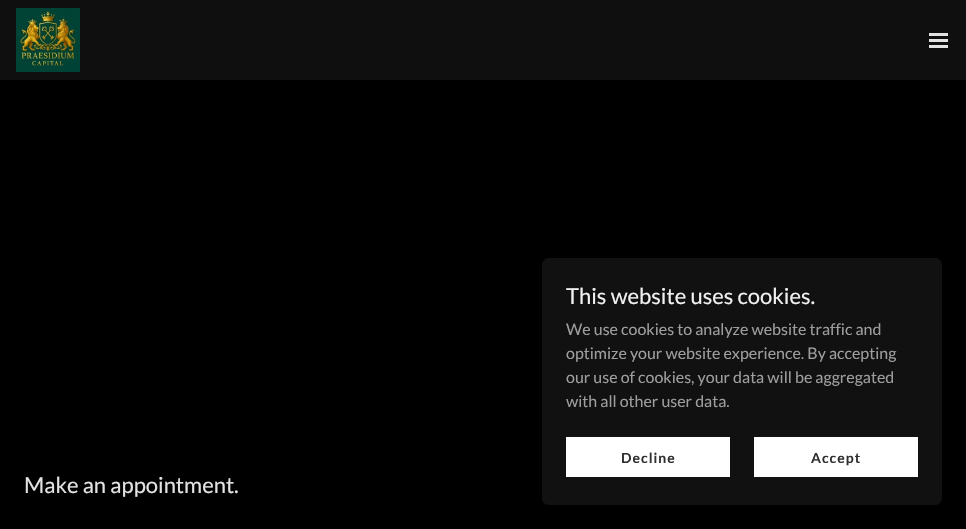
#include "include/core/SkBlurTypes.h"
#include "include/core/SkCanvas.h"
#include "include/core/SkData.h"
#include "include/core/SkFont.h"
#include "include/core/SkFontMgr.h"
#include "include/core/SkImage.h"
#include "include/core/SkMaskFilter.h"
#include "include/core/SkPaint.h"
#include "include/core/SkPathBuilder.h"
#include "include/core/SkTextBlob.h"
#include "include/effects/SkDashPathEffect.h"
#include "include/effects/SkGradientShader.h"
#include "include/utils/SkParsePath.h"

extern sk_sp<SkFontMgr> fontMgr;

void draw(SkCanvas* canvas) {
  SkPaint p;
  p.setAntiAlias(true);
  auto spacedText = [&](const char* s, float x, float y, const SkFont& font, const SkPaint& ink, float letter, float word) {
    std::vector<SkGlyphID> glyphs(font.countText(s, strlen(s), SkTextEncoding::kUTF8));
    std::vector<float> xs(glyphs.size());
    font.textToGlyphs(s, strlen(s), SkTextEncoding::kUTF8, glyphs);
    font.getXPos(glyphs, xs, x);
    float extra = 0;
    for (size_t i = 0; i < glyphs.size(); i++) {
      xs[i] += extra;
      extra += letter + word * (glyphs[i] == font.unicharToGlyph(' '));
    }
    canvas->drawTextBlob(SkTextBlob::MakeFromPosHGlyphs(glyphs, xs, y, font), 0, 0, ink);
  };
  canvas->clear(SK_ColorBLACK);
  p.setColor(SkColorSetRGB(15, 15, 15));
  canvas->drawRect(SkRect::MakeLTRB(0, 0, 966, 80), p);
  canvas->drawImageRect(SkImages::DeferredFromEncodedData(SkData::MakeFromFileName("images/1.png")), SkRect::MakeLTRB(16, 8, 80, 72), SkSamplingOptions());
  p.setColor(SkColorSetRGB(226, 226, 226));
  canvas->drawRect(SkRect::MakeLTRB(929, 33, 948, 36), p);
  canvas->drawRect(SkRect::MakeLTRB(929, 39, 948, 42), p);
  canvas->drawRect(SkRect::MakeLTRB(929, 45, 948, 48), p);
  p.setColor(SkColorSetRGB(17, 17, 17));
  canvas->drawRoundRect(SkRect::MakeLTRB(542, 258, 942, 505), 7, 7, p);
  p.setColor(SK_ColorWHITE);
  canvas->drawRect(SkRect::MakeLTRB(566, 437, 730, 477), p);
  canvas->drawRect(SkRect::MakeLTRB(754, 437, 918, 477), p);
  SkFont font1(fontMgr->matchFamilyStyle("Lato", SkFontStyle::Normal()), 22);
  font1.setSubpixel(true);
  p.setColor(SkColorSetRGB(241, 241, 241));
  canvas->drawString("This website uses cookies.", 566, 304, font1, p);
  SkFont font2(fontMgr->matchFamilyStyle("Lato", SkFontStyle::Normal()), 16);
  font2.setSubpixel(true);
  p.setColor(SkColorSetRGB(158, 158, 158));
  canvas->drawString("We use cookies to analyze website traffic and", 566, 335, font2, p);
  canvas->drawString("optimize your website experience. By accepting", 566, 359, font2, p);
  canvas->drawString("our use of cookies, your data will be aggregated", 566, 383, font2, p);
  canvas->drawString("with all other user data.", 566, 407, font2, p);
  SkFont font3(fontMgr->matchFamilyStyle("Lato", SkFontStyle::Bold()), 14);
  font3.setSubpixel(true);
  p.setColor(SkColorSetRGB(48, 48, 48));
  spacedText("Decline", 621, 463, font3, p, 1, 0);
  spacedText("Accept", 811, 463, font3, p, 1, 0);
  p.setColor(SkColorSetRGB(226, 226, 226));
  canvas->drawString("Make an appointment.", 24, 493, font1, p);
}
